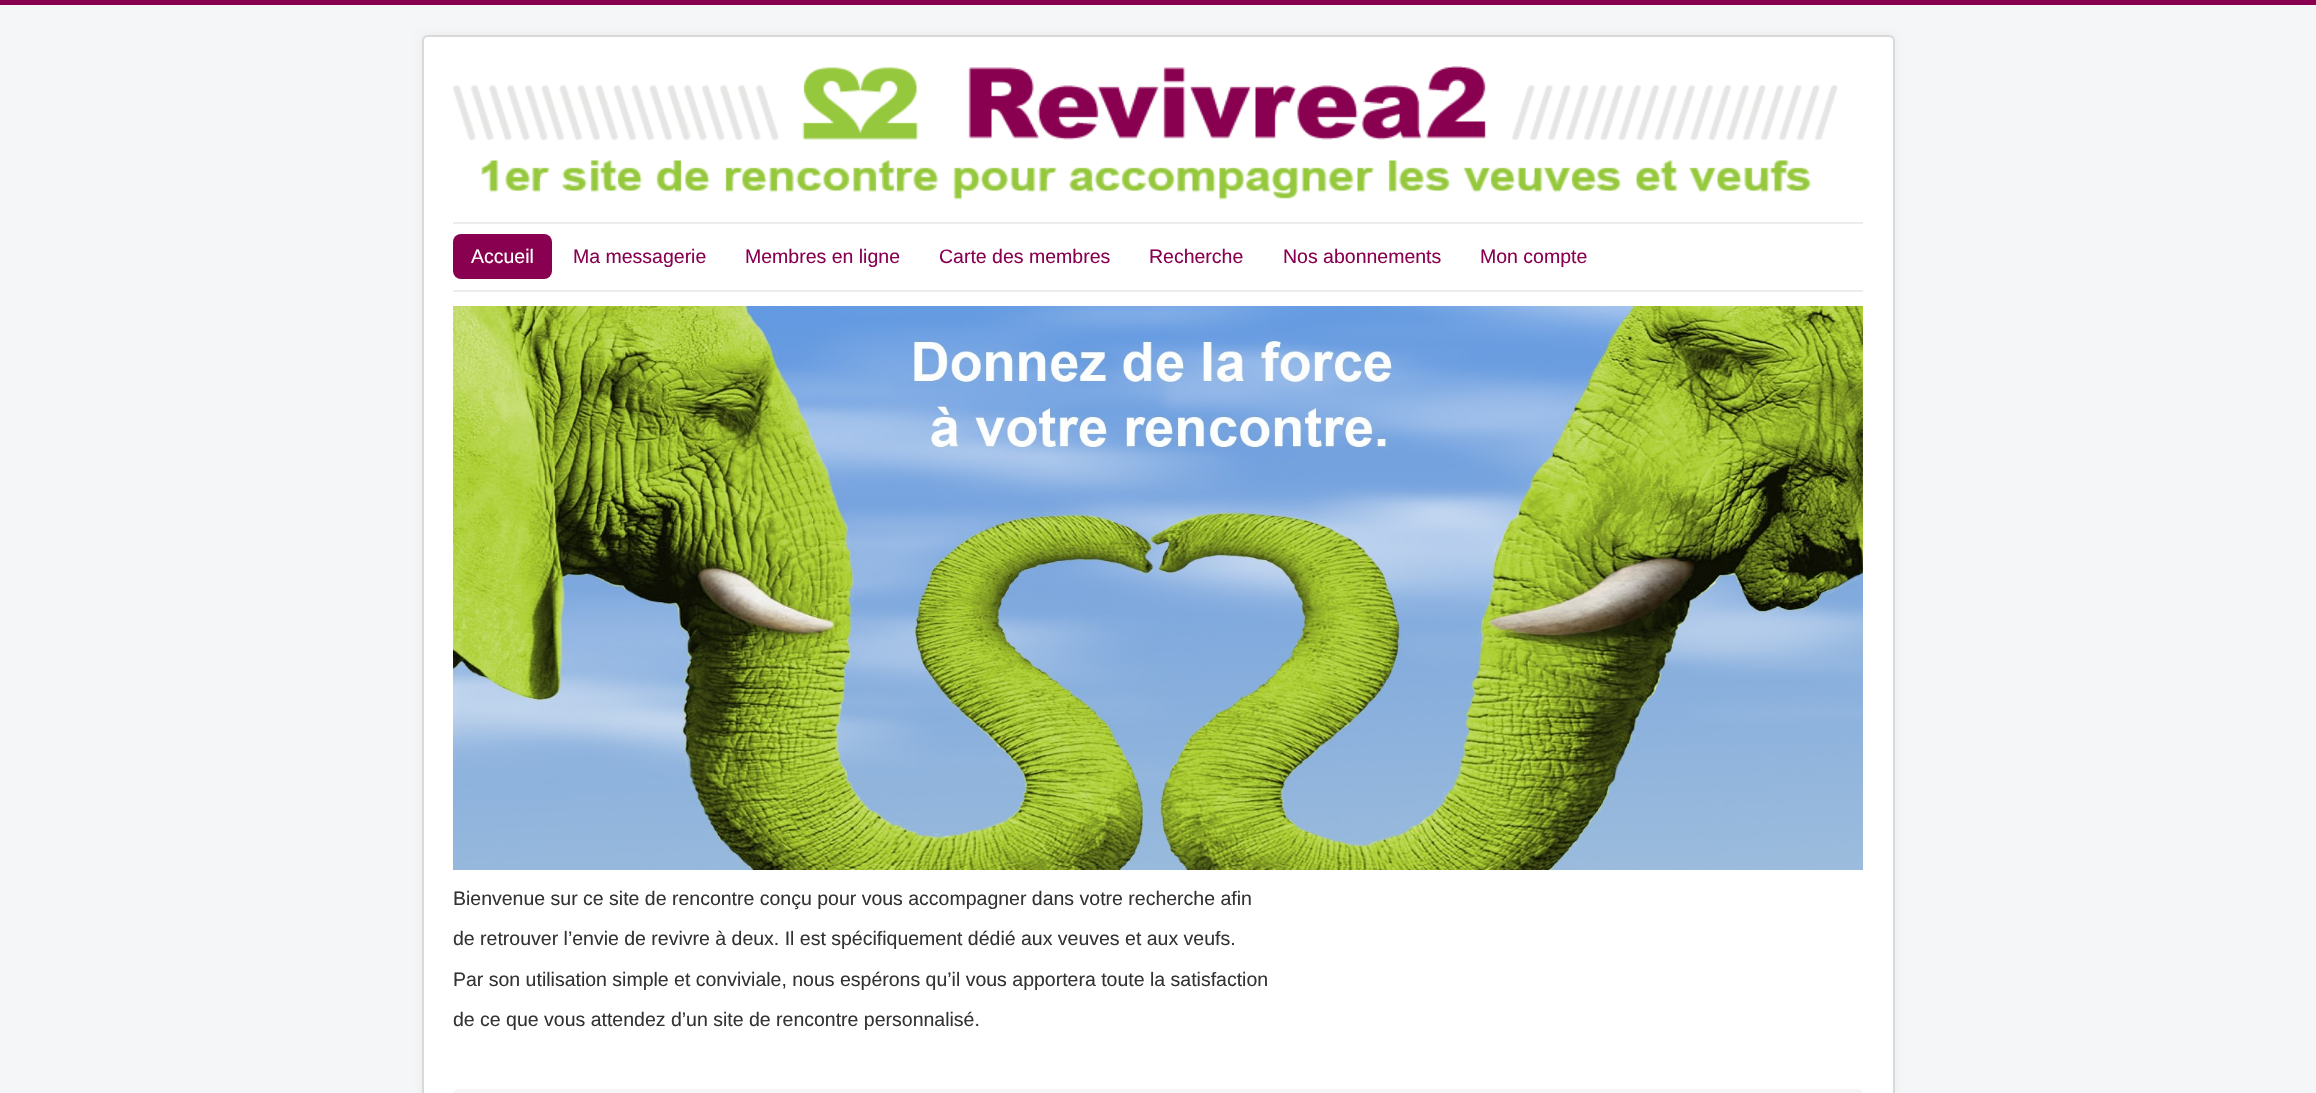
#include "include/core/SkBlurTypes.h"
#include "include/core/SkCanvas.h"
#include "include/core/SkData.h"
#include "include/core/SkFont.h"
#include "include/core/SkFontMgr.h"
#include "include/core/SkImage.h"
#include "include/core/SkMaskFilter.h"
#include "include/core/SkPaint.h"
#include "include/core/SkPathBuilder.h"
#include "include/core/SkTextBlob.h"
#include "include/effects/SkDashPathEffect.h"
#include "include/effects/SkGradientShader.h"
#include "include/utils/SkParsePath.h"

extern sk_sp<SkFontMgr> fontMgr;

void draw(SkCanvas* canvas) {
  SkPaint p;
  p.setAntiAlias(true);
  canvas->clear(SkColorSetRGB(244, 246, 247));
  p.setColor(SkColorSetRGB(137, 0, 80));
  canvas->drawRect(SkRect::MakeLTRB(0, 0, 2316, 5), p);
  p.setColor(SkColorSetARGB(13, 0, 0, 0));
  p.setMaskFilter(SkMaskFilter::MakeBlur(kNormal_SkBlurStyle, 4.5f));
  canvas->drawRoundRect(SkRect::MakeLTRB(422, 35, 1895, 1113), 6, 6, p);
  p.setMaskFilter(nullptr);
  p.setColor(SK_ColorWHITE);
  canvas->drawRoundRect(SkRect::MakeLTRB(422, 35, 1895, 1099), 6, 6, p);
  p.setStyle(SkPaint::kStroke_Style);
  p.setStrokeWidth(2);
  p.setColor(SkColorSetARGB(38, 0, 0, 0));
  canvas->drawRoundRect(SkRect::MakeLTRB(423, 36, 1894, 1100), 5, 5, p);
  canvas->drawImageRect(SkImages::DeferredFromEncodedData(SkData::MakeFromFileName("images/1.png")), SkRect::MakeLTRB(453, 66, 1838, 200), SkSamplingOptions());
  p.setStyle(SkPaint::kFill_Style);
  p.setColor(SkColorSetRGB(236, 236, 236));
  canvas->drawRect(SkRect::MakeLTRB(453, 222, 1863, 224), p);
  canvas->drawRect(SkRect::MakeLTRB(453, 290, 1863, 292), p);
  p.setColor(SkColorSetRGB(137, 0, 80));
  canvas->drawRoundRect(SkRect::MakeLTRB(453, 234, 552, 279), 8, 8, p);
  canvas->drawImageRect(SkImages::DeferredFromEncodedData(SkData::MakeFromFileName("images/2.png")), SkRect::MakeLTRB(453, 306, 1863, 870), SkSamplingOptions());
  p.setColor(SkColorSetRGB(245, 245, 245));
  canvas->drawRoundRect(SkRect::MakeLTRB(453, 1089, 1863, 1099), 6, 6, p);
  SkFont font1(fontMgr->matchFamilyStyle("Liberation Sans", SkFontStyle::Normal()), 19.5f);
  font1.setSubpixel(true);
  p.setColor(SK_ColorWHITE);
  canvas->drawString("Accueil", 471, 263, font1, p);
  p.setColor(SkColorSetRGB(137, 0, 80));
  canvas->drawString("Ma messagerie", 573, 263, font1, p);
  canvas->drawString("Membres en ligne", 745, 263, font1, p);
  canvas->drawString("Carte des membres", 939, 263, font1, p);
  canvas->drawString("Recherche", 1149, 263, font1, p);
  canvas->drawString("Nos abonnements", 1283, 263, font1, p);
  canvas->drawString("Mon compte", 1480, 263, font1, p);
  p.setColor(SkColorSetRGB(51, 51, 51));
  canvas->drawString("Bienvenue sur ce site de rencontre conçu pour vous accompagner dans votre recherche afin", 453, 905, font1, p);
  canvas->drawString("de retrouver l’envie de revivre à deux. Il est spécifiquement dédié aux veuves et aux veufs.", 453, 945, font1, p);
  canvas->drawString("Par son utilisation simple et conviviale, nous espérons qu’il vous apportera toute la satisfaction", 453, 986, font1, p);
  canvas->drawString("de ce que vous attendez d’un site de rencontre personnalisé.", 453, 1026, font1, p);
}
